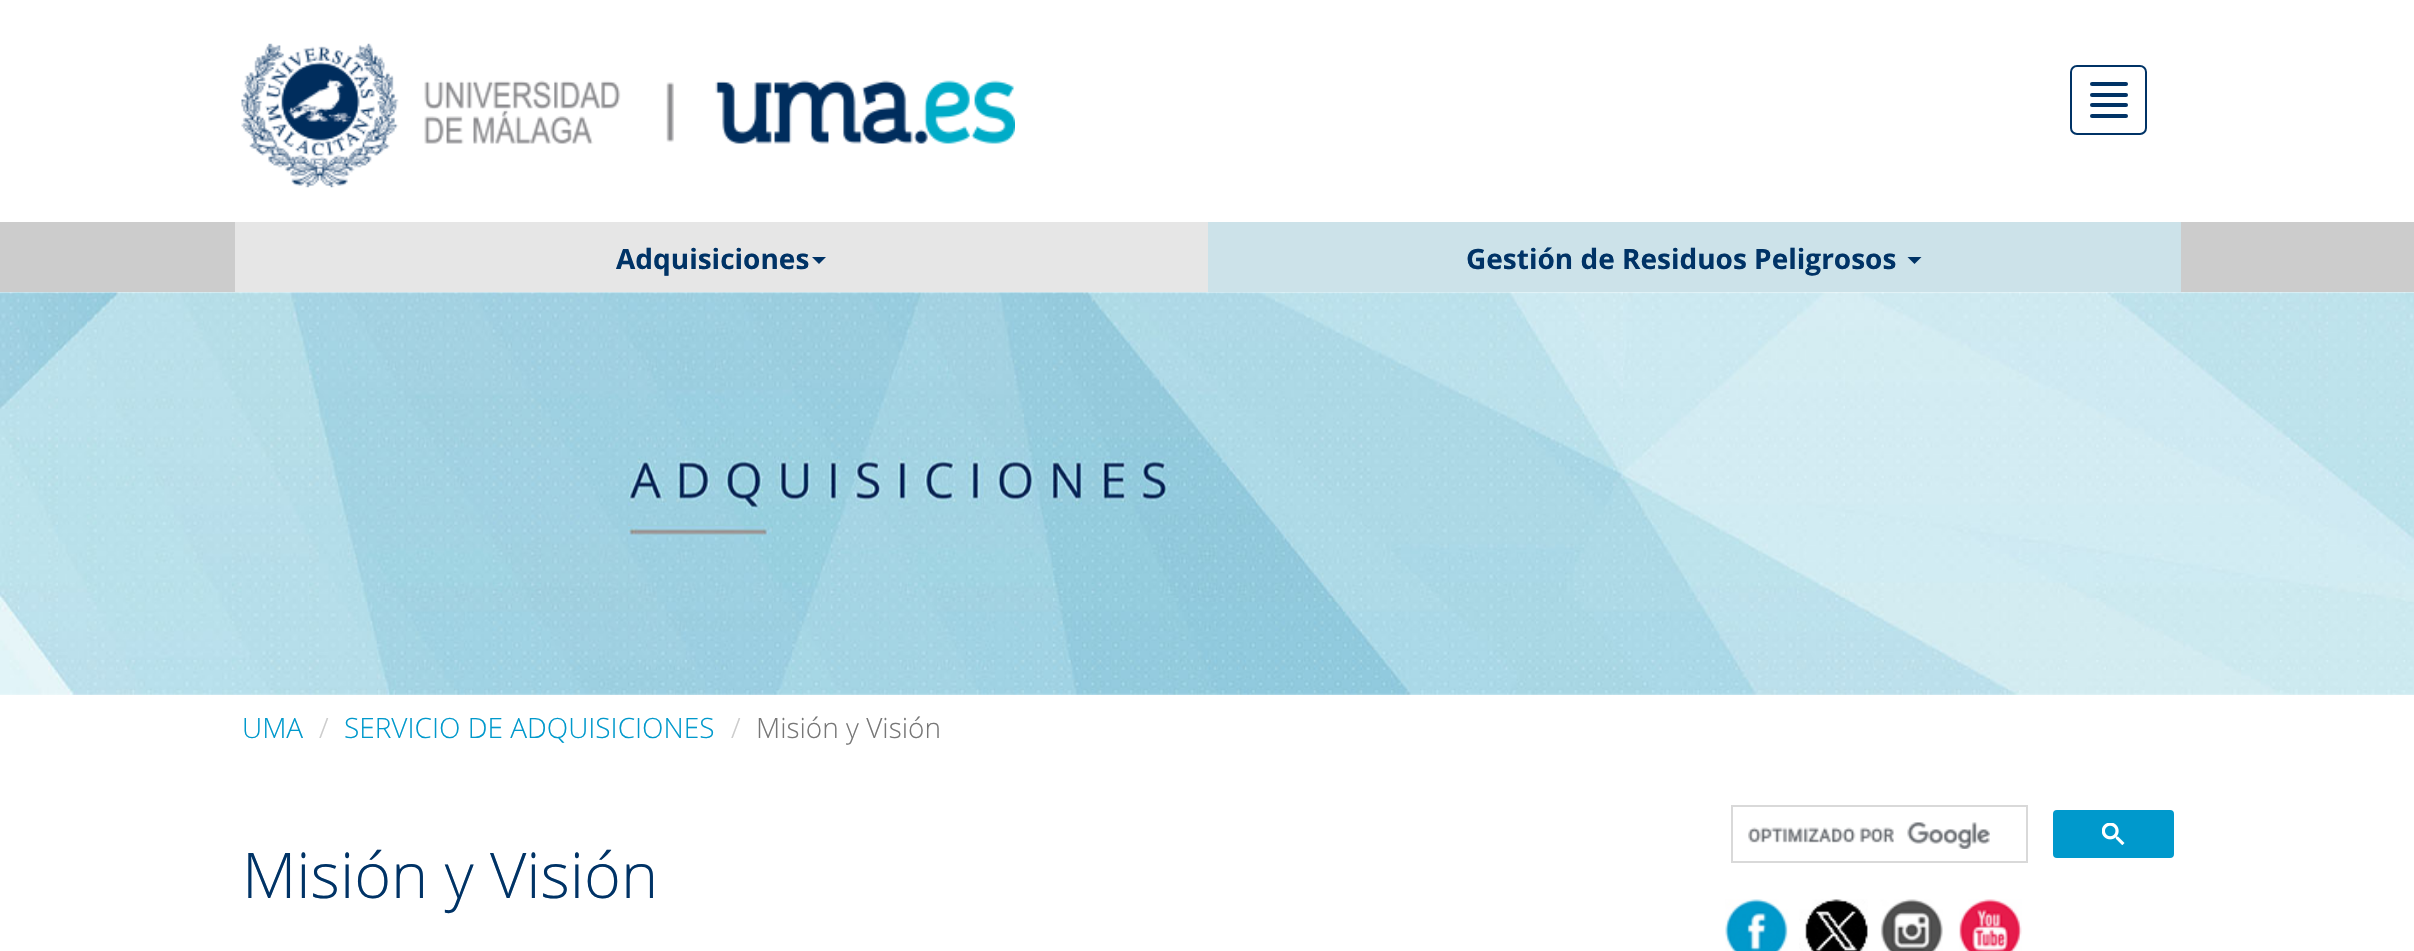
#include "include/core/SkBlurTypes.h"
#include "include/core/SkCanvas.h"
#include "include/core/SkData.h"
#include "include/core/SkFont.h"
#include "include/core/SkFontMgr.h"
#include "include/core/SkImage.h"
#include "include/core/SkMaskFilter.h"
#include "include/core/SkPaint.h"
#include "include/core/SkPathBuilder.h"
#include "include/core/SkTextBlob.h"
#include "include/effects/SkDashPathEffect.h"
#include "include/effects/SkGradientShader.h"
#include "include/utils/SkParsePath.h"

extern sk_sp<SkFontMgr> fontMgr;

void draw(SkCanvas* canvas) {
  SkPaint p;
  p.setAntiAlias(true);
  canvas->clear(SK_ColorWHITE);
  canvas->drawImageRect(SkImages::DeferredFromEncodedData(SkData::MakeFromFileName("images/1.png")), SkRect::MakeLTRB(241, 43, 1015, 188), SkSamplingOptions());
  p.setStyle(SkPaint::kStroke_Style);
  p.setStrokeWidth(2);
  p.setColor(SkColorSetRGB(0, 51, 102));
  canvas->drawRoundRect(SkRect::MakeLTRB(2071, 66, 2146, 134), 6, 6, p);
  p.setStyle(SkPaint::kFill_Style);
  canvas->drawRoundRect(SkRect::MakeLTRB(2090, 82, 2128, 86), 2, 2, p);
  canvas->drawRoundRect(SkRect::MakeLTRB(2090, 93, 2128, 97), 2, 2, p);
  canvas->drawRoundRect(SkRect::MakeLTRB(2090, 103, 2128, 107), 2, 2, p);
  canvas->drawRoundRect(SkRect::MakeLTRB(2090, 114, 2128, 118), 2, 2, p);
  p.setColor(SkColorSetRGB(204, 204, 204));
  canvas->drawRect(SkRect::MakeLTRB(0, 222, 2414, 292), p);
  p.setColor(SkColorSetRGB(230, 230, 230));
  canvas->drawRect(SkRect::MakeLTRB(235, 222, 1208, 292), p);
  p.setColor(SkColorSetRGB(0, 51, 102));
  canvas->drawPath(SkPathBuilder().moveTo(812, 257).lineTo(826, 257).lineTo(819, 264).close().detach(), p);
  p.setColor(SkColorSetRGB(204, 226, 233));
  canvas->drawRect(SkRect::MakeLTRB(1208, 222, 2181, 292), p);
  p.setColor(SkColorSetRGB(0, 51, 102));
  canvas->drawPath(SkPathBuilder().moveTo(1907.5f, 257).lineTo(1921.5f, 257).lineTo(1914.5f, 264).close().detach(), p);
  canvas->drawImageRect(SkImages::DeferredFromEncodedData(SkData::MakeFromFileName("images/2.png")), SkRect::MakeLTRB(0, 292, 2414, 695), SkSamplingOptions());
  p.setStyle(SkPaint::kStroke_Style);
  p.setColor(SkColorSetRGB(217, 217, 217));
  canvas->drawRect(SkRect::MakeLTRB(1732, 806, 2027, 862), p);
  canvas->drawImageRect(SkImages::DeferredFromEncodedData(SkData::MakeFromFileName("images/3.png")), SkRect::MakeLTRB(1748, 822, 1990, 849), SkSamplingOptions());
  p.setStyle(SkPaint::kFill_Style);
  p.setColor(SkColorSetRGB(0, 153, 204));
  canvas->drawRoundRect(SkRect::MakeLTRB(2054, 811, 2173, 857), 3, 3, p);
  p.setStyle(SkPaint::kStroke_Style);
  canvas->drawRoundRect(SkRect::MakeLTRB(2054, 811, 2173, 857), 3, 3, p);
  canvas->drawImageRect(SkImages::DeferredFromEncodedData(SkData::MakeFromFileName("images/4.png")), SkRect::MakeLTRB(2102, 823, 2125, 845), SkSamplingOptions());
  canvas->drawImageRect(SkImages::DeferredFromEncodedData(SkData::MakeFromFileName("images/5.png")), SkRect::MakeLTRB(1725, 899, 1788, 951), SkSamplingOptions());
  canvas->drawImageRect(SkImages::DeferredFromEncodedData(SkData::MakeFromFileName("images/6.png")), SkRect::MakeLTRB(1799, 899, 1868, 951), SkSamplingOptions());
  canvas->drawImageRect(SkImages::DeferredFromEncodedData(SkData::MakeFromFileName("images/7.png")), SkRect::MakeLTRB(1880, 899, 1943, 951), SkSamplingOptions());
  canvas->drawImageRect(SkImages::DeferredFromEncodedData(SkData::MakeFromFileName("images/8.png")), SkRect::MakeLTRB(1959, 899, 2022, 951), SkSamplingOptions());
  SkFont font1(fontMgr->matchFamilyStyle("Open Sans", SkFontStyle::Bold()), 28);
  font1.setSubpixel(true);
  p.setStyle(SkPaint::kFill_Style);
  p.setColor(SkColorSetRGB(0, 51, 102));
  canvas->drawString("Adquisiciones", 616, 269, font1, p);
  canvas->drawString("Gestión de Residuos Peligrosos", 1466, 269, font1, p);
  SkFont font2(fontMgr->matchFamilyStyle("Open Sans", SkFontStyle(300, SkFontStyle::kNormal_Width, SkFontStyle::kUpright_Slant)), 28);
  font2.setSubpixel(true);
  p.setColor(SkColorSetRGB(0, 153, 204));
  canvas->drawString("UMA", 242, 738, font2, p);
  p.setColor(SkColorSetRGB(204, 204, 204));
  canvas->drawString("/", 319, 738, font2, p);
  p.setColor(SkColorSetRGB(0, 153, 204));
  canvas->drawString("SERVICIO DE ADQUISICIONES", 344, 738, font2, p);
  p.setColor(SkColorSetRGB(204, 204, 204));
  canvas->drawString("/", 731, 738, font2, p);
  p.setColor(SkColorSetRGB(119, 119, 119));
  canvas->drawString("Misión y Visión", 756, 738, font2, p);
  SkFont font3(fontMgr->matchFamilyStyle("Open Sans", SkFontStyle(300, SkFontStyle::kNormal_Width, SkFontStyle::kUpright_Slant)), 63);
  font3.setSubpixel(true);
  p.setColor(SkColorSetRGB(0, 51, 102));
  canvas->drawString("Misión y Visión", 242, 898, font3, p);
}
